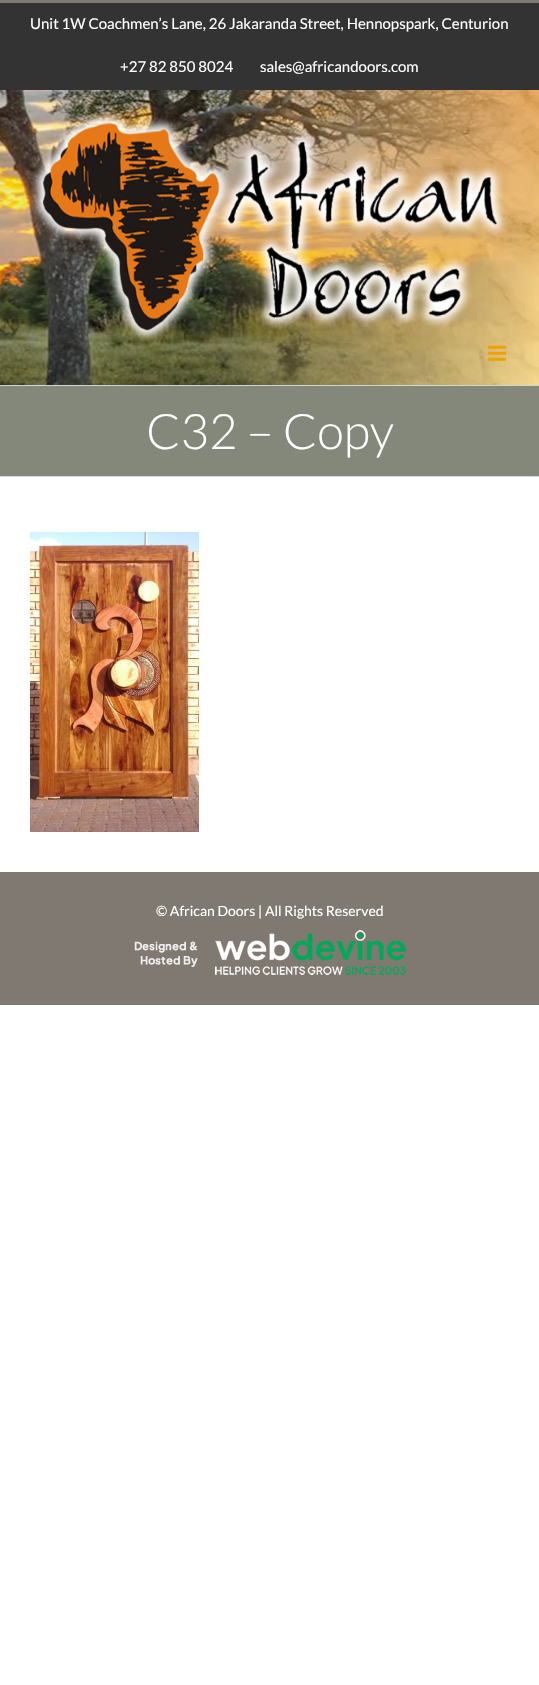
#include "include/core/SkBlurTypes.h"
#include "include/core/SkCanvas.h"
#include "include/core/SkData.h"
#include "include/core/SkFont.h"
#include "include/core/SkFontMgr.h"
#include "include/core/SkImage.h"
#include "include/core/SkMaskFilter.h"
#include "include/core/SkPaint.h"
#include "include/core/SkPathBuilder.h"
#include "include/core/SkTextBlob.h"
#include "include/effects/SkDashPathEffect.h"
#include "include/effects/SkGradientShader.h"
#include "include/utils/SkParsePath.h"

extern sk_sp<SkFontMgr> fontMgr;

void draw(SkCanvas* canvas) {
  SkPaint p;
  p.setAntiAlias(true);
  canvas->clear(SK_ColorWHITE);
  p.setColor(SkColorSetRGB(51, 51, 51));
  canvas->drawRect(SkRect::MakeLTRB(0, 3, 539, 90), p);
  p.setColor(SkColorSetRGB(128, 121, 113));
  canvas->drawRect(SkRect::MakeLTRB(0, 0, 539, 3), p);
  canvas->drawImageRect(SkImages::DeferredFromEncodedData(SkData::MakeFromFileName("images/1.png")), SkRect::MakeLTRB(0, 90, 539, 385), SkSamplingOptions());
  canvas->drawImageRect(SkImages::DeferredFromEncodedData(SkData::MakeFromFileName("images/2.png")), SkRect::MakeLTRB(31, 111, 508, 342), SkSamplingOptions());
  canvas->drawImageRect(SkImages::DeferredFromEncodedData(SkData::MakeFromFileName("images/3.png")), SkRect::MakeLTRB(488, 345, 506, 361), SkSamplingOptions());
  p.setColor(SkColorSetRGB(132, 136, 122));
  canvas->drawRect(SkRect::MakeLTRB(0, 386, 539, 476), p);
  p.setColor(SkColorSetRGB(210, 211, 212));
  canvas->drawRect(SkRect::MakeLTRB(0, 385, 539, 386), p);
  canvas->drawRect(SkRect::MakeLTRB(0, 476, 539, 477), p);
  canvas->drawImageRect(SkImages::DeferredFromEncodedData(SkData::MakeFromFileName("images/4.png")), SkRect::MakeLTRB(30, 532, 199, 832), SkSamplingOptions());
  p.setColor(SkColorSetRGB(128, 121, 113));
  canvas->drawRect(SkRect::MakeLTRB(0, 872, 539, 1005), p);
  canvas->drawImageRect(SkImages::DeferredFromEncodedData(SkData::MakeFromFileName("images/5.png")), SkRect::MakeLTRB(134, 930, 406, 975), SkSamplingOptions());
  SkFont font1(fontMgr->matchFamilyStyle("Lato", SkFontStyle::Normal()), 15);
  font1.setSubpixel(true);
  p.setColor(SK_ColorWHITE);
  canvas->drawString("Unit 1W Coachmen’s Lane, 26 Jakaranda Street, Hennopspark, Centurion", 30, 29, font1, p);
  canvas->drawString("+27 82 850 8024", 120, 72, font1, p);
  canvas->drawString("sales@africandoors.com", 260, 72, font1, p);
  SkFont font2(fontMgr->matchFamilyStyle("Lato", SkFontStyle(300, SkFontStyle::kNormal_Width, SkFontStyle::kUpright_Slant)), 49);
  font2.setSubpixel(true);
  canvas->drawString("C32 – Copy", 146, 449, font2, p);
  SkFont font3(fontMgr->matchFamilyStyle("Lato", SkFontStyle::Normal()), 14);
  font3.setSubpixel(true);
  canvas->drawString("© African Doors | All Rights Reserved", 156, 916, font3, p);
}
